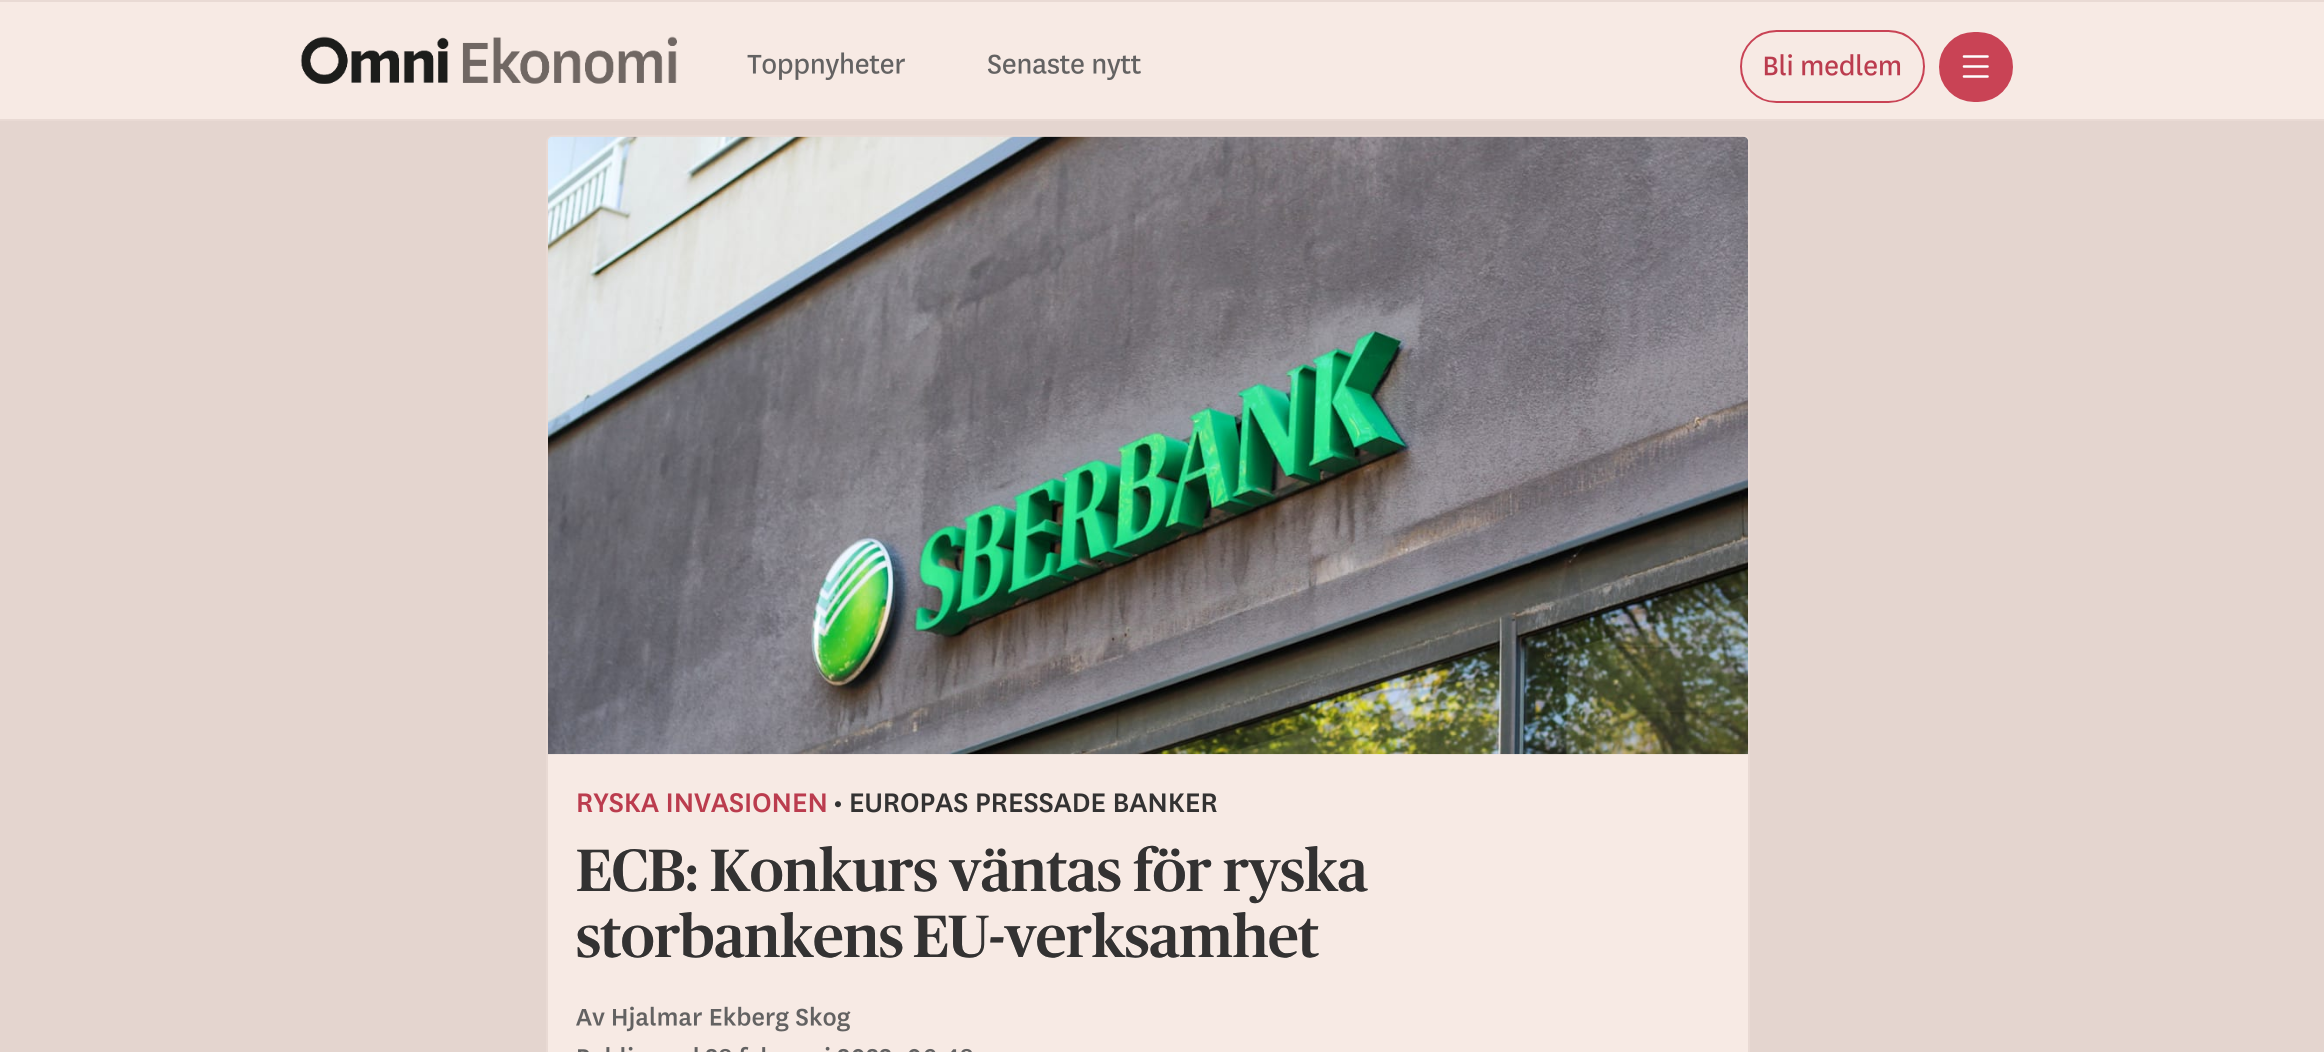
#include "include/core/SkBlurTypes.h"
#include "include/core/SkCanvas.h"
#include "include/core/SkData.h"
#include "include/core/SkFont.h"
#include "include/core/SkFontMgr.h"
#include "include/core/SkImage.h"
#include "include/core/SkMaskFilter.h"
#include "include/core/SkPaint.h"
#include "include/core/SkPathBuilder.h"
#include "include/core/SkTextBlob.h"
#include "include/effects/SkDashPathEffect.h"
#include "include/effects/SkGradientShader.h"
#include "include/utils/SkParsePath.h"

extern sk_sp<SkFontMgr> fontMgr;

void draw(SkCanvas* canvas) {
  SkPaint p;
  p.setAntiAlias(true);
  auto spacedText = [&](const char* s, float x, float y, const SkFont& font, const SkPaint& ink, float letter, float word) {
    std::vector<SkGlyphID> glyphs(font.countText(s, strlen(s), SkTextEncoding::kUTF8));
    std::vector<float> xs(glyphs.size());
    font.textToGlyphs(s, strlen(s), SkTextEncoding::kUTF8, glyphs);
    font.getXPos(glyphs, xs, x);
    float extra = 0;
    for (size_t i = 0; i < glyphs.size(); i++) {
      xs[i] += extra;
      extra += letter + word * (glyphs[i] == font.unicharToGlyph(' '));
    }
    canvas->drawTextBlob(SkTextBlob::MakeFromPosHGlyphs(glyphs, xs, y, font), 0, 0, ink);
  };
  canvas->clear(SkColorSetRGB(228, 213, 207));
  p.setColor(SkColorSetRGB(247, 234, 228));
  canvas->drawRect(SkRect::MakeLTRB(0, 2, 2324, 119), p);
  p.setColor(SkColorSetRGB(233, 218, 212));
  canvas->drawRect(SkRect::MakeLTRB(0, 0, 2324, 2), p);
  canvas->drawRect(SkRect::MakeLTRB(0, 119, 2324, 121), p);
  canvas->drawImageRect(SkImages::DeferredFromEncodedData(SkData::MakeFromFileName("images/1.png")), SkRect::MakeLTRB(300, 36, 677, 84), SkSamplingOptions());
  canvas->drawImageRect(SkImages::DeferredFromEncodedData(SkData::MakeFromFileName("images/2.png")), SkRect::MakeLTRB(747, 52, 905, 80), SkSamplingOptions());
  canvas->drawImageRect(SkImages::DeferredFromEncodedData(SkData::MakeFromFileName("images/3.png")), SkRect::MakeLTRB(987, 54, 1141, 80), SkSamplingOptions());
  p.setStyle(SkPaint::kStroke_Style);
  p.setStrokeWidth(2);
  p.setColor(SkColorSetRGB(201, 67, 85));
  canvas->drawRoundRect(SkRect::MakeLTRB(1741, 31, 1924, 102), 35.5f, 35.5f, p);
  canvas->drawImageRect(SkImages::DeferredFromEncodedData(SkData::MakeFromFileName("images/4.png")), SkRect::MakeLTRB(1764, 54, 1901, 76), SkSamplingOptions());
  p.setStyle(SkPaint::kFill_Style);
  canvas->drawRoundRect(SkRect::MakeLTRB(1940, 33, 2012, 101), 34, 34, p);
  p.setStyle(SkPaint::kStroke_Style);
  canvas->drawRoundRect(SkRect::MakeLTRB(1940, 33, 2012, 101), 34, 34, p);
  p.setStrokeWidth(2.6f);
  p.setStrokeCap(SkPaint::kRound_Cap);
  p.setStrokeJoin(SkPaint::kRound_Join);
  p.setColor(SK_ColorWHITE);
  canvas->drawPath(SkPathBuilder().moveTo(1964, 56.5f).lineTo(1987.5f, 56.5f).moveTo(1964, 66.5f).lineTo(1987.5f, 66.5f).moveTo(1964, 76.5f).lineTo(1987.5f, 76.5f).detach(), p);
  p.setStyle(SkPaint::kFill_Style);
  p.setColor(SkColorSetRGB(247, 234, 228));
  canvas->drawRoundRect(SkRect::MakeLTRB(547, 136, 1749, 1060), 6, 6, p);
  p.setStyle(SkPaint::kStroke_Style);
  p.setStrokeWidth(2);
  p.setStrokeCap(SkPaint::kButt_Cap);
  p.setStrokeJoin(SkPaint::kMiter_Join);
  p.setColor(SkColorSetRGB(233, 218, 212));
  canvas->drawRoundRect(SkRect::MakeLTRB(547, 136, 1749, 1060), 6, 6, p);
  canvas->drawImageRect(SkImages::DeferredFromEncodedData(SkData::MakeFromFileName("images/5.png")), SkRect::MakeLTRB(548, 136, 1748, 755), SkSamplingOptions());
  canvas->drawImageRect(SkImages::DeferredFromEncodedData(SkData::MakeFromFileName("images/6.png")), SkRect::MakeLTRB(578, 793, 826, 813), SkSamplingOptions());
  canvas->drawImageRect(SkImages::DeferredFromEncodedData(SkData::MakeFromFileName("images/7.png")), SkRect::MakeLTRB(834, 801, 841, 808), SkSamplingOptions());
  canvas->drawImageRect(SkImages::DeferredFromEncodedData(SkData::MakeFromFileName("images/8.png")), SkRect::MakeLTRB(851, 793, 1217, 813), SkSamplingOptions());
  canvas->drawImageRect(SkImages::DeferredFromEncodedData(SkData::MakeFromFileName("images/9.png")), SkRect::MakeLTRB(576, 1009, 605, 1026), SkSamplingOptions());
  canvas->drawImageRect(SkImages::DeferredFromEncodedData(SkData::MakeFromFileName("images/10.png")), SkRect::MakeLTRB(613, 1006, 851, 1032), SkSamplingOptions());
  canvas->drawImageRect(SkImages::DeferredFromEncodedData(SkData::MakeFromFileName("images/11.png")), SkRect::MakeLTRB(578, 1046, 698, 1052), SkSamplingOptions());
  canvas->drawImageRect(SkImages::DeferredFromEncodedData(SkData::MakeFromFileName("images/12.png")), SkRect::MakeLTRB(706, 1046, 972, 1052), SkSamplingOptions());
  SkFont font1(fontMgr->matchFamilyStyle("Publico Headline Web", SkFontStyle(500, SkFontStyle::kNormal_Width, SkFontStyle::kUpright_Slant)), 59.5f);
  font1.setSubpixel(true);
  p.setStyle(SkPaint::kFill_Style);
  p.setColor(SkColorSetRGB(51, 50, 50));
  spacedText("ECB: Konkurs väntas för ryska", 576, 891, font1, p, -0.5f, -0.5f);
  spacedText("storbankens EU-verksamhet", 576, 957, font1, p, -0.5f, -3);
}
